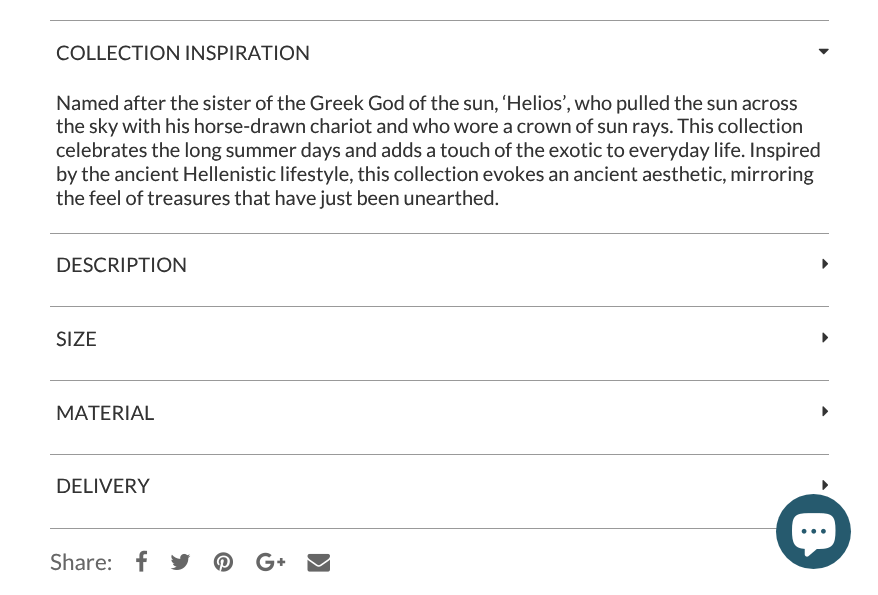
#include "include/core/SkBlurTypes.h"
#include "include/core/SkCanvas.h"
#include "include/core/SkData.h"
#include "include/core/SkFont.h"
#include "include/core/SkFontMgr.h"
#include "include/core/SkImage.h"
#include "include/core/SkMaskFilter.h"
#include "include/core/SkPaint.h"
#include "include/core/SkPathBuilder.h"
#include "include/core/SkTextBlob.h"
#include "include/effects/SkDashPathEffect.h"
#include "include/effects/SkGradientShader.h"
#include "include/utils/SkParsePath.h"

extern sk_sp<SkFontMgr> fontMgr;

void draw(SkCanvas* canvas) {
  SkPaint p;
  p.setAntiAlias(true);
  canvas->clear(SK_ColorWHITE);
  p.setColor(SkColorSetRGB(153, 153, 153));
  canvas->drawRect(SkRect::MakeLTRB(50, 20, 829, 21), p);
  canvas->drawImageRect(SkImages::DeferredFromEncodedData(SkData::MakeFromFileName("images/1.png")), SkRect::MakeLTRB(818, 48, 829, 55), SkSamplingOptions());
  canvas->drawRect(SkRect::MakeLTRB(50, 233, 829, 234), p);
  canvas->drawImageRect(SkImages::DeferredFromEncodedData(SkData::MakeFromFileName("images/2.png")), SkRect::MakeLTRB(822, 258, 829, 269), SkSamplingOptions());
  canvas->drawRect(SkRect::MakeLTRB(50, 306, 829, 307), p);
  canvas->drawImageRect(SkImages::DeferredFromEncodedData(SkData::MakeFromFileName("images/3.png")), SkRect::MakeLTRB(822, 332, 829, 343), SkSamplingOptions());
  canvas->drawRect(SkRect::MakeLTRB(50, 380, 829, 381), p);
  canvas->drawImageRect(SkImages::DeferredFromEncodedData(SkData::MakeFromFileName("images/4.png")), SkRect::MakeLTRB(822, 406, 829, 417), SkSamplingOptions());
  canvas->drawRect(SkRect::MakeLTRB(50, 454, 829, 455), p);
  canvas->drawRect(SkRect::MakeLTRB(50, 528, 777, 529), p);
  canvas->drawImageRect(SkImages::DeferredFromEncodedData(SkData::MakeFromFileName("images/5.png")), SkRect::MakeLTRB(822, 480, 828, 490), SkSamplingOptions());
  canvas->drawImageRect(SkImages::DeferredFromEncodedData(SkData::MakeFromFileName("images/6.png")), SkRect::MakeLTRB(136, 550, 148, 572), SkSamplingOptions());
  canvas->drawImageRect(SkImages::DeferredFromEncodedData(SkData::MakeFromFileName("images/7.png")), SkRect::MakeLTRB(170, 553, 191, 570), SkSamplingOptions());
  canvas->drawImageRect(SkImages::DeferredFromEncodedData(SkData::MakeFromFileName("images/8.png")), SkRect::MakeLTRB(213, 552, 233, 572), SkSamplingOptions());
  canvas->drawImageRect(SkImages::DeferredFromEncodedData(SkData::MakeFromFileName("images/9.png")), SkRect::MakeLTRB(256, 552, 286, 572), SkSamplingOptions());
  canvas->drawImageRect(SkImages::DeferredFromEncodedData(SkData::MakeFromFileName("images/10.png")), SkRect::MakeLTRB(307, 553, 330, 572), SkSamplingOptions());
  p.setColor(SkColorSetRGB(38, 90, 110));
  canvas->drawCircle(813.5f, 531.5f, 37.5f, p);
  canvas->drawImageRect(SkImages::DeferredFromEncodedData(SkData::MakeFromFileName("images/11.png")), SkRect::MakeLTRB(792, 513, 836, 557), SkSamplingOptions());
  SkFont font1(fontMgr->matchFamilyStyle("Lato", SkFontStyle::Normal()), 20);
  font1.setSubpixel(true);
  p.setColor(SkColorSetRGB(51, 51, 51));
  canvas->drawString("COLLECTION INSPIRATION", 56, 60, font1, p);
  canvas->drawString("Named after the sister of the Greek God of the sun, ‘Helios’, who pulled the sun across", 56, 110, font1, p);
  canvas->drawString("the sky with his horse-drawn chariot and who wore a crown of sun rays. This collection", 56, 133, font1, p);
  canvas->drawString("celebrates the long summer days and adds a touch of the exotic to everyday life. Inspired", 56, 157, font1, p);
  canvas->drawString("by the ancient Hellenistic lifestyle, this collection evokes an ancient aesthetic, mirroring", 56, 181, font1, p);
  canvas->drawString("the feel of treasures that have just been unearthed.", 56, 205, font1, p);
  canvas->drawString("DESCRIPTION", 56, 272, font1, p);
  canvas->drawString("SIZE", 56, 346, font1, p);
  canvas->drawString("MATERIAL", 56, 420, font1, p);
  canvas->drawString("DELIVERY", 56, 493, font1, p);
  SkFont font2(fontMgr->matchFamilyStyle("Lato", SkFontStyle::Normal()), 22.5f);
  font2.setSubpixel(true);
  p.setColor(SkColorSetRGB(102, 102, 102));
  canvas->drawString("Share:", 50, 570, font2, p);
}
